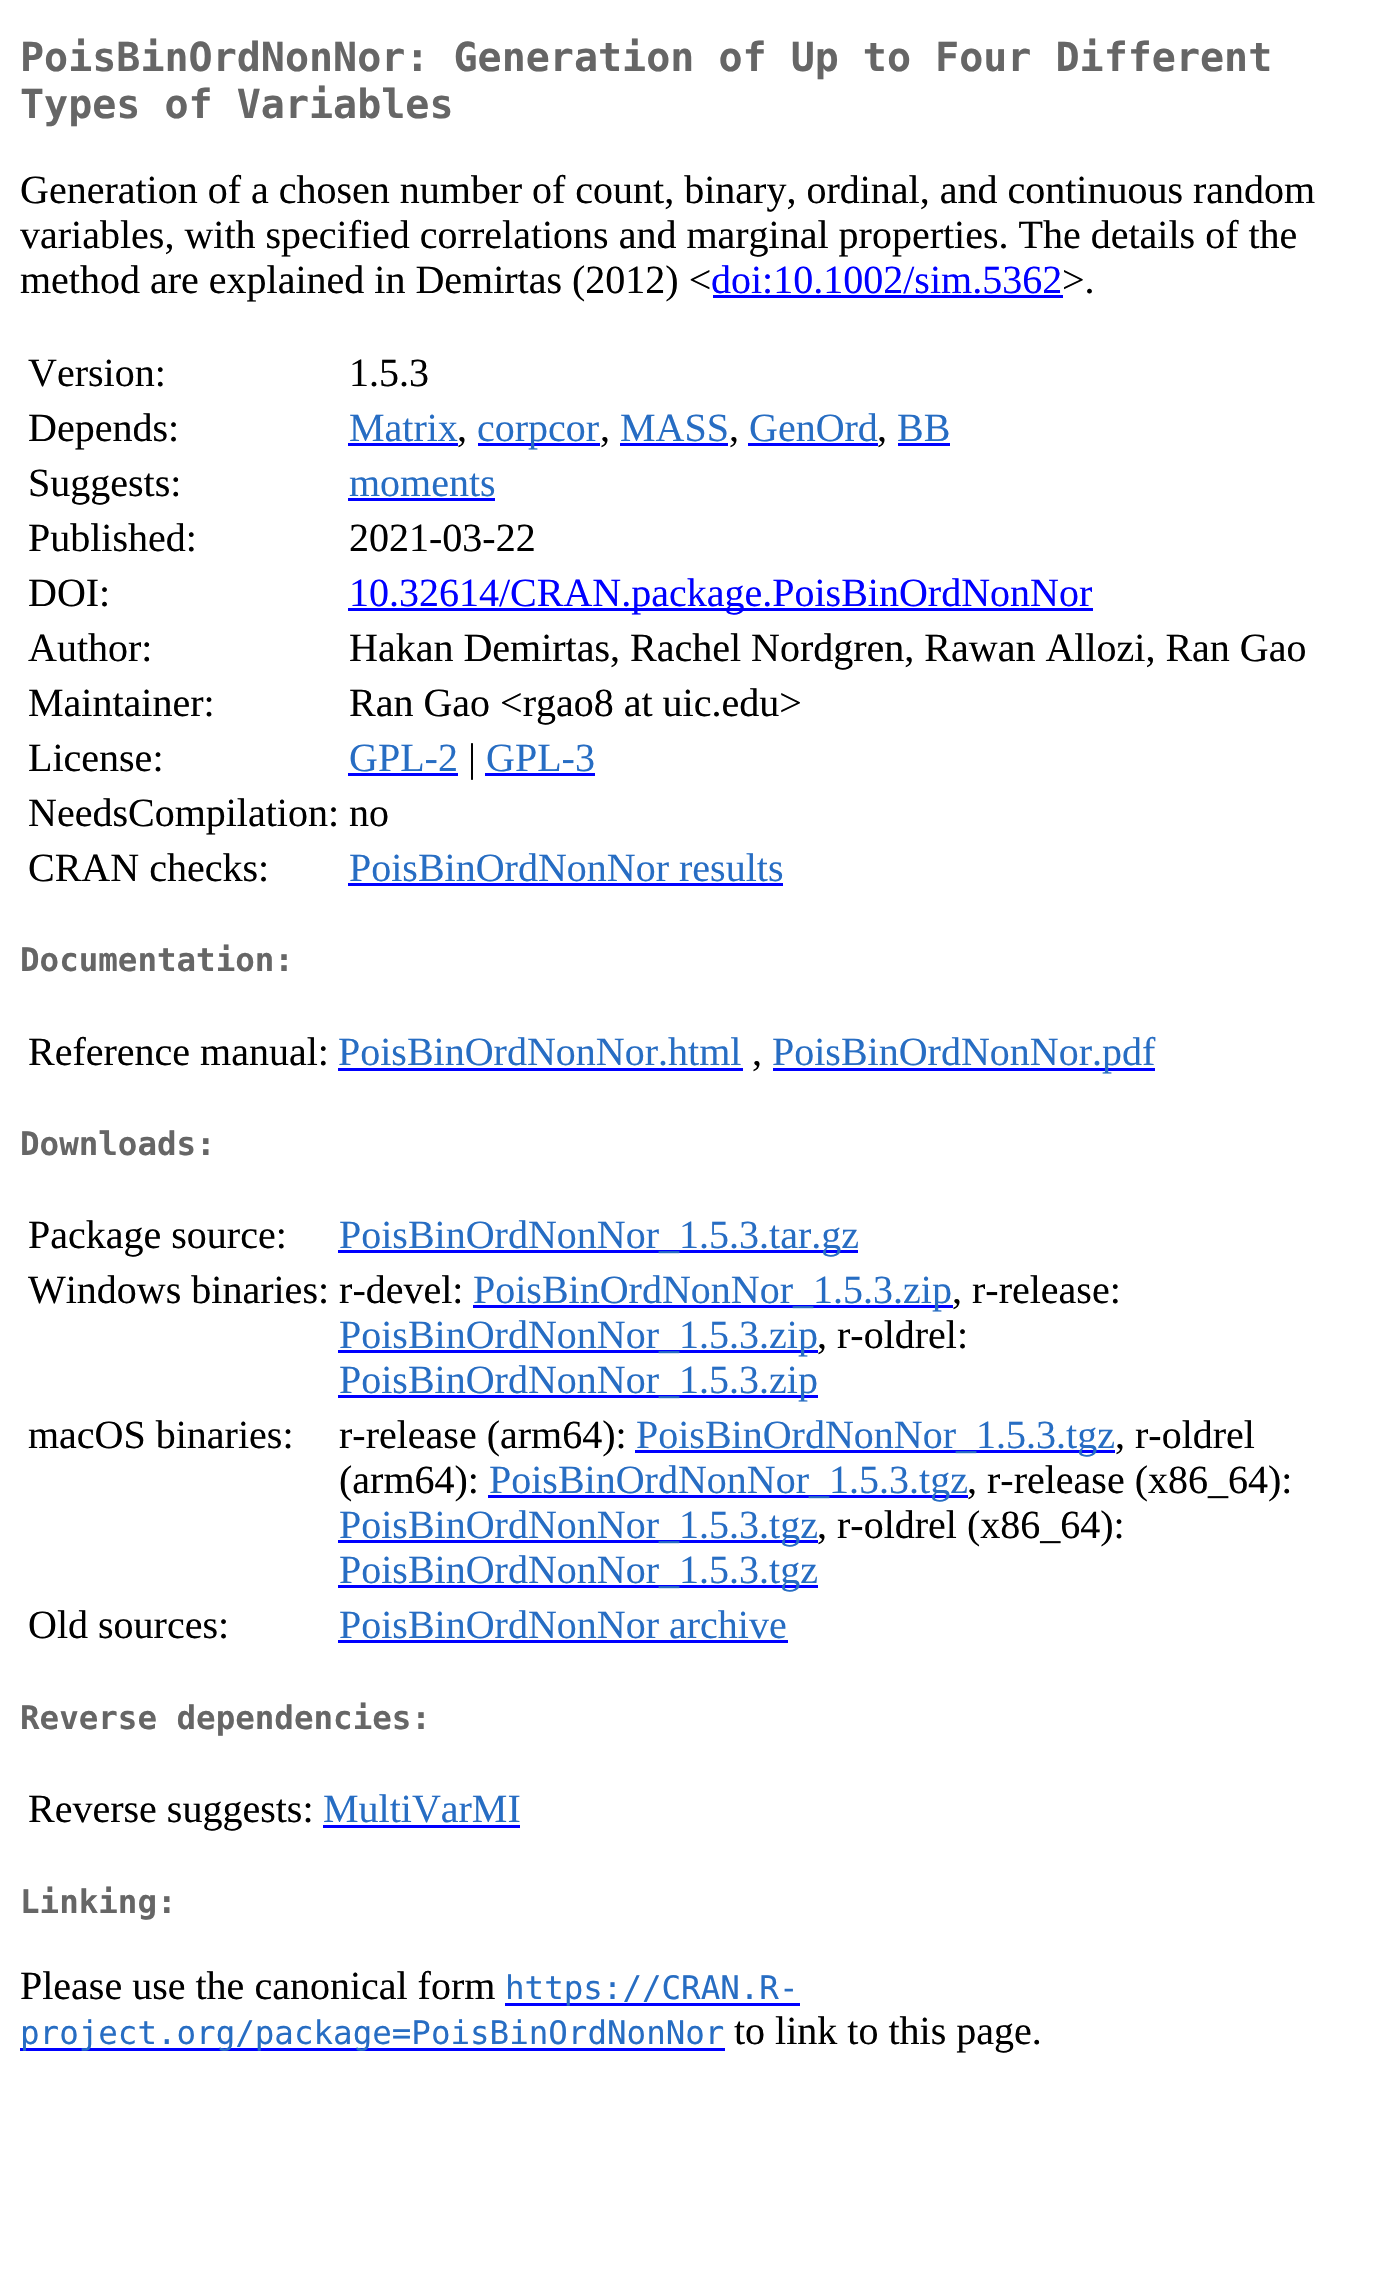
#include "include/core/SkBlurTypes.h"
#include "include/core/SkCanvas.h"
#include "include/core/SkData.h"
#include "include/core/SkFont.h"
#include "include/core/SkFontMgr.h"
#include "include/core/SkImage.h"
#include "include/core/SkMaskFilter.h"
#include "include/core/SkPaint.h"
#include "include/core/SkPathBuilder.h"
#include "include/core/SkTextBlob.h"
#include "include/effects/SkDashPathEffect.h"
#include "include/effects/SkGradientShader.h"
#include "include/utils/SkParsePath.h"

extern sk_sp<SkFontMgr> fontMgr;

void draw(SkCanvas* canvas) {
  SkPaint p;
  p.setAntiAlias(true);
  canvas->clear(SK_ColorWHITE);
  p.setColor(SkColorSetRGB(0, 0, 255));
  canvas->drawRect(SkRect::MakeLTRB(713, 295, 1063, 298), p);
  canvas->drawRect(SkRect::MakeLTRB(348, 443, 458, 446), p);
  canvas->drawRect(SkRect::MakeLTRB(478, 443, 600, 446), p);
  canvas->drawRect(SkRect::MakeLTRB(620, 443, 728, 446), p);
  canvas->drawRect(SkRect::MakeLTRB(748, 443, 878, 446), p);
  canvas->drawRect(SkRect::MakeLTRB(898, 443, 950, 446), p);
  canvas->drawRect(SkRect::MakeLTRB(348, 498, 495, 501), p);
  canvas->drawRect(SkRect::MakeLTRB(348, 608, 1093, 611), p);
  canvas->drawRect(SkRect::MakeLTRB(348, 773, 458, 776), p);
  canvas->drawRect(SkRect::MakeLTRB(485, 773, 595, 776), p);
  canvas->drawRect(SkRect::MakeLTRB(348, 883, 783, 886), p);
  canvas->drawRect(SkRect::MakeLTRB(338, 1068, 743, 1071), p);
  canvas->drawRect(SkRect::MakeLTRB(773, 1068, 1155, 1071), p);
  canvas->drawRect(SkRect::MakeLTRB(338, 1250, 858, 1253), p);
  canvas->drawRect(SkRect::MakeLTRB(473, 1305, 953, 1308), p);
  canvas->drawRect(SkRect::MakeLTRB(338, 1350, 818, 1353), p);
  canvas->drawRect(SkRect::MakeLTRB(338, 1395, 818, 1398), p);
  canvas->drawRect(SkRect::MakeLTRB(635, 1450, 1115, 1453), p);
  canvas->drawRect(SkRect::MakeLTRB(488, 1495, 968, 1498), p);
  canvas->drawRect(SkRect::MakeLTRB(338, 1540, 818, 1543), p);
  canvas->drawRect(SkRect::MakeLTRB(338, 1585, 818, 1588), p);
  canvas->drawRect(SkRect::MakeLTRB(338, 1640, 788, 1643), p);
  canvas->drawRect(SkRect::MakeLTRB(323, 1825, 520, 1828), p);
  canvas->drawRect(SkRect::MakeLTRB(505, 2003, 800, 2006), p);
  canvas->drawRect(SkRect::MakeLTRB(20, 2048, 725, 2051), p);
  SkFont font1(fontMgr->matchFamilyStyle("DejaVu Sans Mono", SkFontStyle::Bold()), 40);
  font1.setSubpixel(true);
  p.setColor(SkColorSetRGB(102, 102, 102));
  canvas->drawString("PoisBinOrdNonNor: Generation of Up to Four Different", 20, 71, font1, p);
  canvas->drawString("Types of Variables", 20, 118, font1, p);
  SkFont font2(fontMgr->matchFamilyStyle("Liberation Serif", SkFontStyle::Normal()), 40);
  font2.setSubpixel(true);
  p.setColor(SK_ColorBLACK);
  canvas->drawString("Generation of a chosen number of count, binary, ordinal, and continuous random", 20, 203, font2, p);
  canvas->drawString("variables, with specified correlations and marginal properties. The details of the", 20, 248, font2, p);
  canvas->drawString("method are explained in Demirtas (2012) <", 20, 293, font2, p);
  p.setColor(SkColorSetRGB(0, 0, 255));
  canvas->drawString("doi:10.1002/sim.5362", 711, 293, font2, p);
  p.setColor(SK_ColorBLACK);
  canvas->drawString(">.", 1062, 293, font2, p);
  canvas->drawString("Version:", 28, 386, font2, p);
  canvas->drawString("1.5.3", 349, 386, font2, p);
  canvas->drawString("Depends:", 28, 441, font2, p);
  p.setColor(SkColorSetRGB(39, 109, 195));
  canvas->drawString("Matrix", 349, 441, font2, p);
  p.setColor(SK_ColorBLACK);
  canvas->drawString(",", 457, 441, font2, p);
  p.setColor(SkColorSetRGB(39, 109, 195));
  canvas->drawString("corpcor", 477, 441, font2, p);
  p.setColor(SK_ColorBLACK);
  canvas->drawString(",", 600, 441, font2, p);
  p.setColor(SkColorSetRGB(39, 109, 195));
  canvas->drawString("MASS", 620, 441, font2, p);
  p.setColor(SK_ColorBLACK);
  canvas->drawString(",", 729, 441, font2, p);
  p.setColor(SkColorSetRGB(39, 109, 195));
  canvas->drawString("GenOrd", 749, 441, font2, p);
  p.setColor(SK_ColorBLACK);
  canvas->drawString(",", 877, 441, font2, p);
  p.setColor(SkColorSetRGB(39, 109, 195));
  canvas->drawString("BB", 897, 441, font2, p);
  p.setColor(SK_ColorBLACK);
  canvas->drawString("Suggests:", 28, 496, font2, p);
  p.setColor(SkColorSetRGB(39, 109, 195));
  canvas->drawString("moments", 349, 496, font2, p);
  p.setColor(SK_ColorBLACK);
  canvas->drawString("Published:", 28, 551, font2, p);
  canvas->drawString("2021-03-22", 349, 551, font2, p);
  canvas->drawString("DOI:", 28, 606, font2, p);
  p.setColor(SkColorSetRGB(0, 0, 255));
  canvas->drawString("10.32614/CRAN.package.PoisBinOrdNonNor", 349, 606, font2, p);
  p.setColor(SK_ColorBLACK);
  canvas->drawString("Author:", 28, 661, font2, p);
  canvas->drawString("Hakan Demirtas, Rachel Nordgren, Rawan Allozi, Ran Gao", 349, 661, font2, p);
  canvas->drawString("Maintainer:", 28, 716, font2, p);
  canvas->drawString("Ran Gao <rgao8 at uic.edu>", 349, 716, font2, p);
  canvas->drawString("License:", 28, 771, font2, p);
  p.setColor(SkColorSetRGB(39, 109, 195));
  canvas->drawString("GPL-2", 349, 771, font2, p);
  p.setColor(SK_ColorBLACK);
  canvas->drawString("|", 468, 771, font2, p);
  p.setColor(SkColorSetRGB(39, 109, 195));
  canvas->drawString("GPL-3", 486, 771, font2, p);
  p.setColor(SK_ColorBLACK);
  canvas->drawString("NeedsCompilation: no", 28, 826, font2, p);
  canvas->drawString("CRAN checks:", 28, 881, font2, p);
  p.setColor(SkColorSetRGB(39, 109, 195));
  canvas->drawString("PoisBinOrdNonNor results", 349, 881, font2, p);
  SkFont font3(fontMgr->matchFamilyStyle("DejaVu Sans Mono", SkFontStyle::Bold()), 32.5f);
  font3.setSubpixel(true);
  p.setColor(SkColorSetRGB(102, 102, 102));
  canvas->drawString("Documentation:", 20, 971, font3, p);
  p.setColor(SK_ColorBLACK);
  canvas->drawString("Reference manual:", 28, 1065, font2, p);
  p.setColor(SkColorSetRGB(39, 109, 195));
  canvas->drawString("PoisBinOrdNonNor.html", 338, 1065, font2, p);
  p.setColor(SK_ColorBLACK);
  canvas->drawString(",", 752, 1065, font2, p);
  p.setColor(SkColorSetRGB(39, 109, 195));
  canvas->drawString("PoisBinOrdNonNor.pdf", 772, 1065, font2, p);
  p.setColor(SkColorSetRGB(102, 102, 102));
  canvas->drawString("Downloads:", 20, 1155, font3, p);
  p.setColor(SK_ColorBLACK);
  canvas->drawString("Package source:", 28, 1248, font2, p);
  p.setColor(SkColorSetRGB(39, 109, 195));
  canvas->drawString("PoisBinOrdNonNor_1.5.3.tar.gz", 339, 1248, font2, p);
  p.setColor(SK_ColorBLACK);
  canvas->drawString("Windows binaries: r-devel:", 28, 1303, font2, p);
  p.setColor(SkColorSetRGB(39, 109, 195));
  canvas->drawString("PoisBinOrdNonNor_1.5.3.zip", 473, 1303, font2, p);
  p.setColor(SK_ColorBLACK);
  canvas->drawString(", r-release:", 952, 1303, font2, p);
  p.setColor(SkColorSetRGB(39, 109, 195));
  canvas->drawString("PoisBinOrdNonNor_1.5.3.zip", 339, 1348, font2, p);
  p.setColor(SK_ColorBLACK);
  canvas->drawString(", r-oldrel:", 817, 1348, font2, p);
  p.setColor(SkColorSetRGB(39, 109, 195));
  canvas->drawString("PoisBinOrdNonNor_1.5.3.zip", 339, 1393, font2, p);
  p.setColor(SK_ColorBLACK);
  canvas->drawString("macOS binaries:", 28, 1448, font2, p);
  canvas->drawString("r-release (arm64):", 339, 1448, font2, p);
  p.setColor(SkColorSetRGB(39, 109, 195));
  canvas->drawString("PoisBinOrdNonNor_1.5.3.tgz", 636, 1448, font2, p);
  p.setColor(SK_ColorBLACK);
  canvas->drawString(", r-oldrel", 1115, 1448, font2, p);
  canvas->drawString("(arm64):", 339, 1493, font2, p);
  p.setColor(SkColorSetRGB(39, 109, 195));
  canvas->drawString("PoisBinOrdNonNor_1.5.3.tgz", 489, 1493, font2, p);
  p.setColor(SK_ColorBLACK);
  canvas->drawString(", r-release (x86_64):", 967, 1493, font2, p);
  p.setColor(SkColorSetRGB(39, 109, 195));
  canvas->drawString("PoisBinOrdNonNor_1.5.3.tgz", 339, 1538, font2, p);
  p.setColor(SK_ColorBLACK);
  canvas->drawString(", r-oldrel (x86_64):", 817, 1538, font2, p);
  p.setColor(SkColorSetRGB(39, 109, 195));
  canvas->drawString("PoisBinOrdNonNor_1.5.3.tgz", 339, 1583, font2, p);
  p.setColor(SK_ColorBLACK);
  canvas->drawString("Old sources:", 28, 1638, font2, p);
  p.setColor(SkColorSetRGB(39, 109, 195));
  canvas->drawString("PoisBinOrdNonNor archive", 339, 1638, font2, p);
  p.setColor(SkColorSetRGB(102, 102, 102));
  canvas->drawString("Reverse dependencies:", 20, 1729, font3, p);
  p.setColor(SK_ColorBLACK);
  canvas->drawString("Reverse suggests:", 28, 1822, font2, p);
  p.setColor(SkColorSetRGB(39, 109, 195));
  canvas->drawString("MultiVarMI", 323, 1822, font2, p);
  p.setColor(SkColorSetRGB(102, 102, 102));
  canvas->drawString("Linking:", 20, 1913, font3, p);
  p.setColor(SK_ColorBLACK);
  canvas->drawString("Please use the canonical form", 20, 1999, font2, p);
  SkFont font4(fontMgr->matchFamilyStyle("DejaVu Sans Mono", SkFontStyle::Normal()), 32.5f);
  font4.setSubpixel(true);
  p.setColor(SkColorSetRGB(39, 109, 195));
  canvas->drawString("https://CRAN.R-", 505, 1999, font4, p);
  canvas->drawString("project.org/package=PoisBinOrdNonNor", 20, 2044, font4, p);
  p.setColor(SK_ColorBLACK);
  canvas->drawString("to link to this page.", 734, 2044, font2, p);
}
